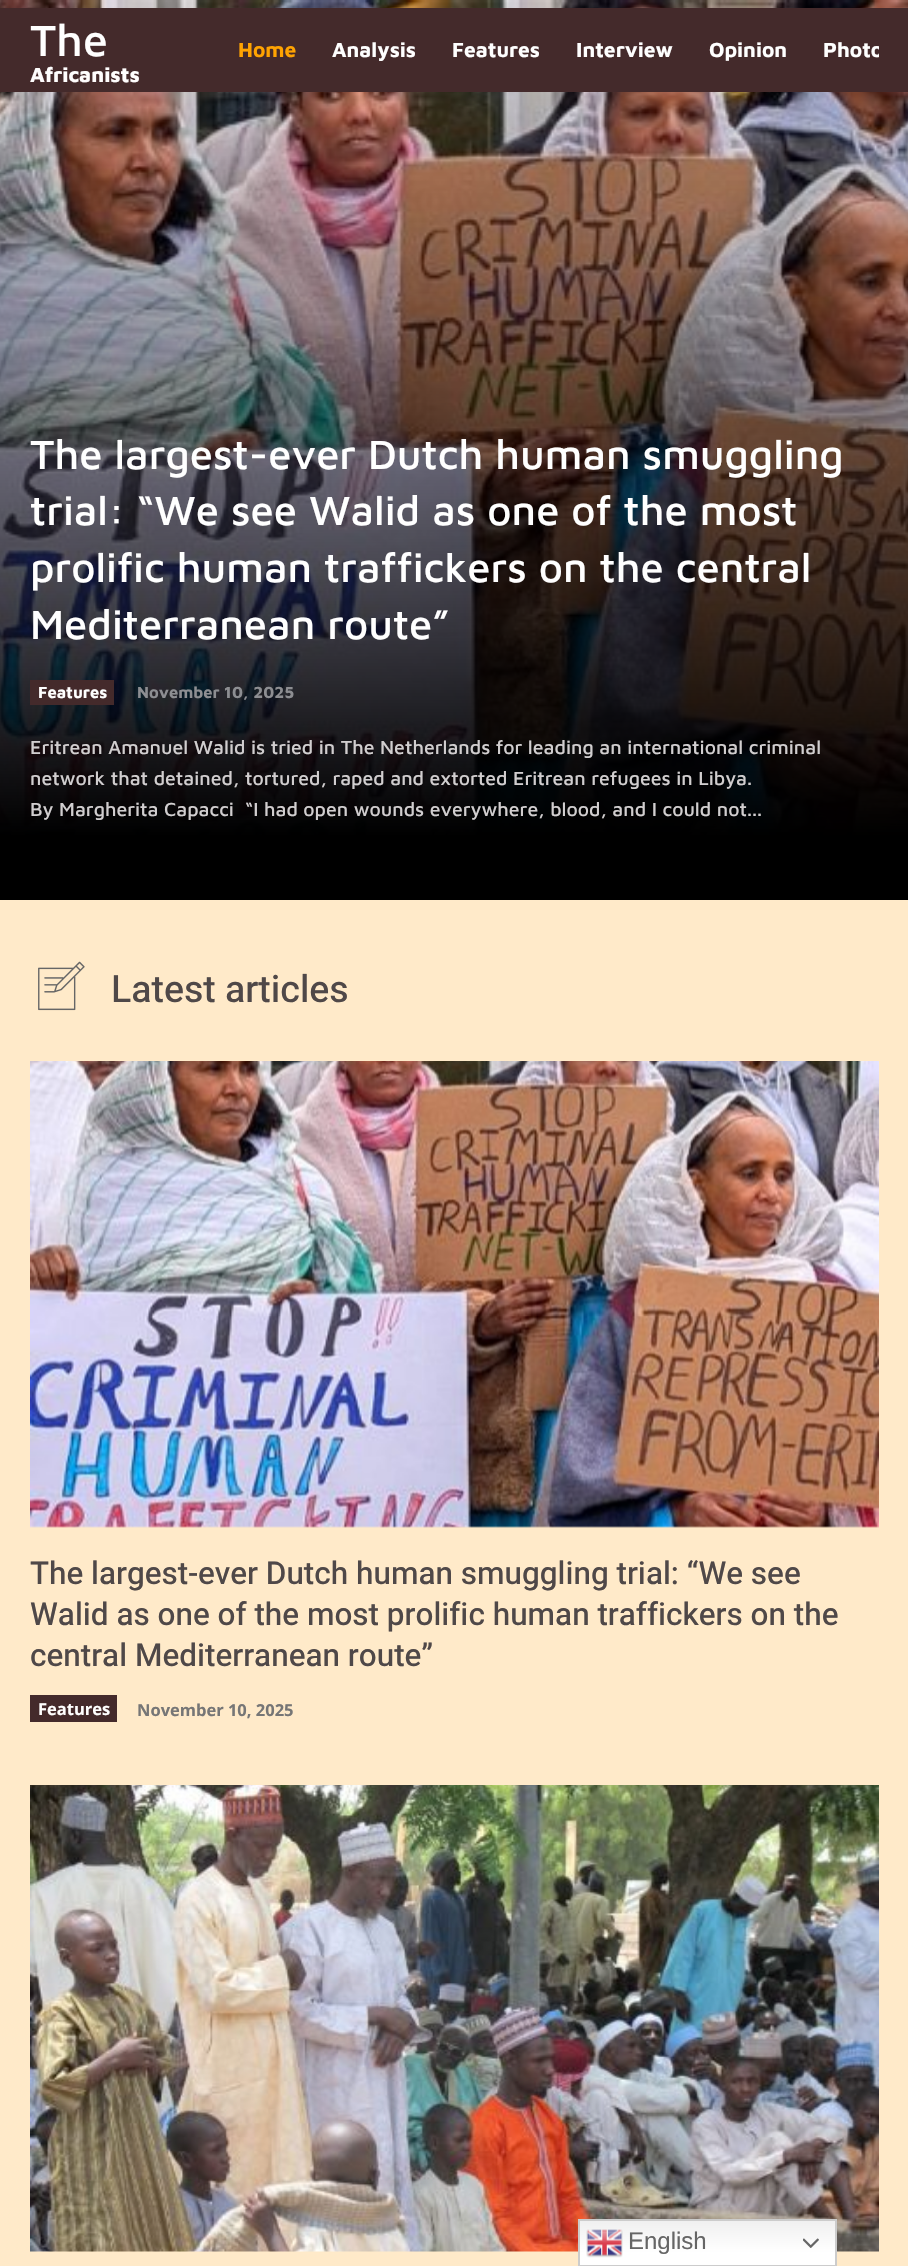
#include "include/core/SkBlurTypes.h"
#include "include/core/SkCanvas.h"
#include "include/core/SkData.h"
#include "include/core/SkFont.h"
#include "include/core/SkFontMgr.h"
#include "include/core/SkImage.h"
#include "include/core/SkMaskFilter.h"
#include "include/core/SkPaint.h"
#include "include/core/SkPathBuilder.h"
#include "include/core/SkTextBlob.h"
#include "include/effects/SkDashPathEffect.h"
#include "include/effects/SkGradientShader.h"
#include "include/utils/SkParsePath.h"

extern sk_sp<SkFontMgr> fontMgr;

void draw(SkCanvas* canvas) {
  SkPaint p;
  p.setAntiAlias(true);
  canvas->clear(SkColorSetRGB(255, 234, 201));
  canvas->drawImageRect(SkImages::DeferredFromEncodedData(SkData::MakeFromFileName("images/1.png")), SkRect::MakeLTRB(0, 0, 908, 900), SkSamplingOptions());
  p.setColor(SkColorSetRGB(68, 42, 43));
  canvas->drawRect(SkRect::MakeLTRB(0, 8, 908, 92), p);
  canvas->drawRect(SkRect::MakeLTRB(30, 680, 114, 705), p);
  canvas->drawImageRect(SkImages::DeferredFromEncodedData(SkData::MakeFromFileName("images/2.png")), SkRect::MakeLTRB(38, 961, 85, 1011), SkSamplingOptions());
  canvas->drawImageRect(SkImages::DeferredFromEncodedData(SkData::MakeFromFileName("images/3.png")), SkRect::MakeLTRB(30, 1061, 879, 1528), SkSamplingOptions());
  canvas->drawRect(SkRect::MakeLTRB(30, 1695, 117, 1722), p);
  canvas->drawImageRect(SkImages::DeferredFromEncodedData(SkData::MakeFromFileName("images/4.png")), SkRect::MakeLTRB(30, 1785, 879, 2252), SkSamplingOptions());
  {
    const SkColor colors[] = {SkColorSetRGB(239, 239, 239), SK_ColorWHITE};
    const float stops[] = {0, 0.7f};
    const SkPoint ends[] = {{707, 2219}, {707, 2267}};
    p.setShader(SkGradientShader::MakeLinear(ends, colors, stops, 2, SkTileMode::kClamp));
    p.setAlpha(255);
  }
  canvas->drawRect(SkRect::MakeLTRB(580, 2221, 835, 2265), p);
  p.setStyle(SkPaint::kStroke_Style);
  p.setStrokeWidth(2);
  p.setShader(nullptr);
  p.setColor(SkColorSetRGB(204, 204, 204));
  canvas->drawRect(SkRect::MakeLTRB(579, 2220, 836, 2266), p);
  canvas->drawImageRect(SkImages::DeferredFromEncodedData(SkData::MakeFromFileName("images/5.png")), SkRect::MakeLTRB(586, 2229, 623, 2258), SkSamplingOptions());
  canvas->drawImageRect(SkImages::DeferredFromEncodedData(SkData::MakeFromFileName("images/6.png")), SkRect::MakeLTRB(803, 2238, 819, 2248), SkSamplingOptions());
  SkFont font1(fontMgr->matchFamilyStyle("Maven Pro", SkFontStyle(500, SkFontStyle::kNormal_Width, SkFontStyle::kUpright_Slant)), 45);
  font1.setSubpixel(true);
  p.setStyle(SkPaint::kFill_Style);
  p.setColor(SK_ColorWHITE);
  canvas->drawString("The", 30, 56, font1, p);
  SkFont font2(fontMgr->matchFamilyStyle("Maven Pro", SkFontStyle(800, SkFontStyle::kNormal_Width, SkFontStyle::kUpright_Slant)), 21);
  font2.setSubpixel(true);
  {
    const SkColor colors[] = {SkColorSetRGB(255, 252, 252), SK_ColorWHITE};
    const float stops[] = {0, 1};
    const SkPoint ends[] = {{85, 85}, {85, 64}};
    p.setShader(SkGradientShader::MakeLinear(ends, colors, stops, 2, SkTileMode::kClamp));
    p.setAlpha(255);
  }
  canvas->drawString("Africanists", 30, 82, font2, p);
  SkFont font3(fontMgr->matchFamilyStyle("Maven Pro", SkFontStyle::Bold()), 21);
  font3.setSubpixel(true);
  p.setShader(nullptr);
  p.setColor(SkColorSetRGB(255, 163, 1));
  canvas->drawString("Home", 238, 57, font3, p);
  p.setColor(SK_ColorWHITE);
  canvas->drawString("Analysis", 332, 57, font3, p);
  canvas->drawString("Features", 452, 57, font3, p);
  canvas->drawString("Interview", 576, 57, font3, p);
  canvas->drawString("Opinion", 709, 57, font3, p);
  canvas->save();
  canvas->clipRect(SkRect::MakeLTRB(239, 8, 879, 92));
  canvas->drawString("Photo", 823, 57, font3, p);
  canvas->restore();
  SkFont font4(fontMgr->matchFamilyStyle("Maven Pro", SkFontStyle(500, SkFontStyle::kNormal_Width, SkFontStyle::kUpright_Slant)), 42);
  font4.setSubpixel(true);
  canvas->drawString("The largest-ever Dutch human smuggling", 30, 469, font4, p);
  canvas->drawString("trial: “We see Walid as one of the most", 30, 525, font4, p);
  canvas->drawString("prolific human traffickers on the central", 30, 582, font4, p);
  canvas->drawString("Mediterranean route”", 30, 639, font4, p);
  SkFont font5(fontMgr->matchFamilyStyle("Maven Pro", SkFontStyle::Bold()), 16.5f);
  font5.setSubpixel(true);
  canvas->drawString("Features", 38, 698, font5, p);
  p.setColor(SkColorSetRGB(141, 142, 146));
  canvas->drawString("November 10, 2025", 137, 698, font5, p);
  SkFont font6(fontMgr->matchFamilyStyle("Maven Pro", SkFontStyle(500, SkFontStyle::kNormal_Width, SkFontStyle::kUpright_Slant)), 19.5f);
  font6.setSubpixel(true);
  p.setColor(SkColorSetRGB(209, 206, 207));
  canvas->drawString("Eritrean Amanuel Walid is tried in The Netherlands for leading an international criminal", 30, 754, font6, p);
  canvas->drawString("network that detained, tortured, raped and extorted Eritrean refugees in Libya.", 30, 785, font6, p);
  canvas->drawString("By Margherita Capacci", 30, 816, font6, p);
  canvas->drawString("“I had open wounds everywhere, blood, and I could not...", 245, 816, font6, p);
  SkFont font7(fontMgr->matchFamilyStyle("Heebo", SkFontStyle(500, SkFontStyle::kNormal_Width, SkFontStyle::kUpright_Slant)), 37.5f);
  font7.setSubpixel(true);
  p.setColor(SkColorSetRGB(79, 72, 72));
  canvas->drawString("Latest articles", 111, 1002, font7, p);
  SkFont font8(fontMgr->matchFamilyStyle("Heebo", SkFontStyle(500, SkFontStyle::kNormal_Width, SkFontStyle::kUpright_Slant)), 31.5f);
  font8.setSubpixel(true);
  canvas->drawString("The largest-ever Dutch human smuggling trial: “We see", 30, 1584, font8, p);
  canvas->drawString("Walid as one of the most prolific human traffickers on the", 30, 1625, font8, p);
  canvas->drawString("central Mediterranean route”", 30, 1666, font8, p);
  SkFont font9(fontMgr->matchFamilyStyle("Open Sans", SkFontStyle::Bold()), 16.5f);
  font9.setSubpixel(true);
  p.setColor(SK_ColorWHITE);
  canvas->drawString("Features", 38, 1715, font9, p);
  p.setColor(SkColorSetRGB(118, 118, 118));
  canvas->drawString("November 10, 2025", 137, 1716, font9, p);
  SkFont font10(fontMgr->matchFamilyStyle("Liberation Sans", SkFontStyle::Normal()), 24);
  font10.setSubpixel(true);
  p.setColor(SkColorSetRGB(102, 102, 102));
  canvas->drawString("English", 628, 2249, font10, p);
}
